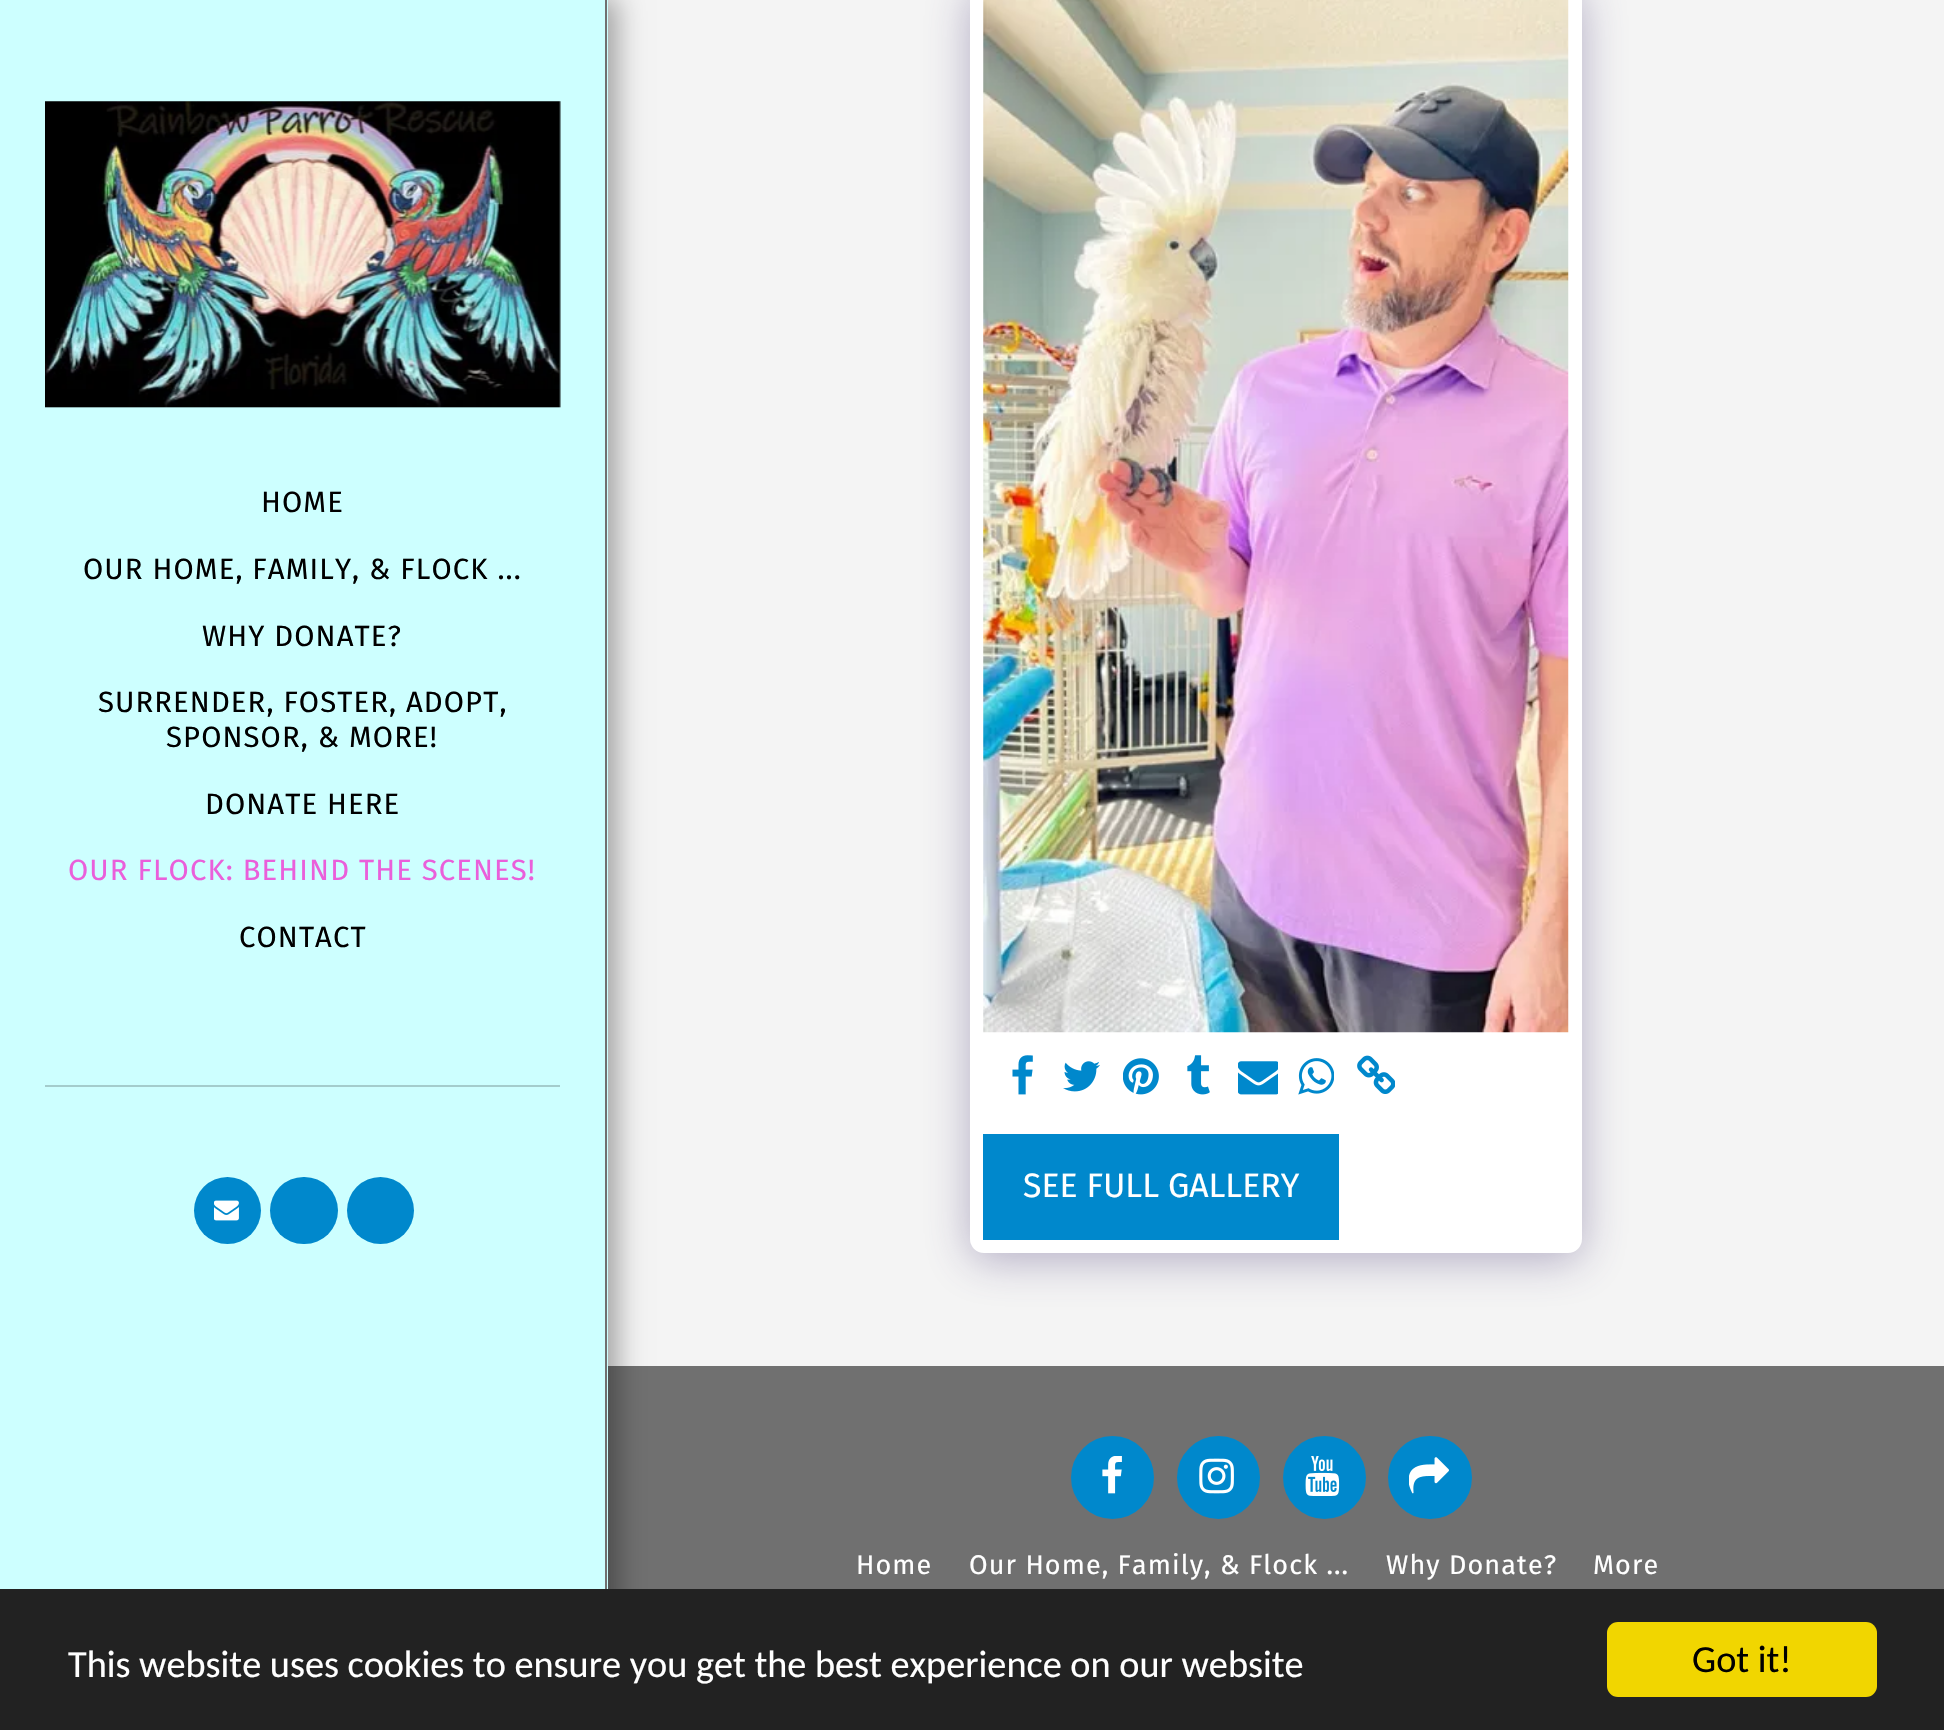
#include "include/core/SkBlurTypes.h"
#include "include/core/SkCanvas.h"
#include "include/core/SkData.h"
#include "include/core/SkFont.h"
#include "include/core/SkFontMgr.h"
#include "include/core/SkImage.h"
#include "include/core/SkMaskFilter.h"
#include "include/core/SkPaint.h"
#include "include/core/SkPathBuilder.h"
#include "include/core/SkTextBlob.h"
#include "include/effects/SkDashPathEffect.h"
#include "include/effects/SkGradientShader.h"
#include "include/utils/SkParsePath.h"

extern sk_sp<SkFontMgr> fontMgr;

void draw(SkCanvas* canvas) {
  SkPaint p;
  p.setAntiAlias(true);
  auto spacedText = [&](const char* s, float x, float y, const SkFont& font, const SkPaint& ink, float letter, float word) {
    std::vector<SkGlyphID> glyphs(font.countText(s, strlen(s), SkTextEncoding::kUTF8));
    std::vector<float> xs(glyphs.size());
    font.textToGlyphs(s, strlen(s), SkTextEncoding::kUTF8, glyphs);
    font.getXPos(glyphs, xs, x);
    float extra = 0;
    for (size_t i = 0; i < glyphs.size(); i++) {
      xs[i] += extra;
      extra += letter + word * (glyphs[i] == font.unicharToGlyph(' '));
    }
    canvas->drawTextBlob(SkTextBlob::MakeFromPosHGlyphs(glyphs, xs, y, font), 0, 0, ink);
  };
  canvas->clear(SkColorSetRGB(244, 244, 244));
  p.setColor(SkColorSetRGB(112, 112, 112));
  canvas->drawRect(SkRect::MakeLTRB(608, 1366, 1944, 1589), p);
  p.setColor(SkColorSetARGB(89, 0, 0, 0));
  p.setMaskFilter(SkMaskFilter::MakeBlur(kNormal_SkBlurStyle, 13.5f));
  canvas->drawRect(SkRect::MakeLTRB(0, -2, 617, 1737), p);
  p.setMaskFilter(nullptr);
  p.setColor(SkColorSetRGB(205, 255, 255));
  canvas->drawRect(SkRect::MakeLTRB(0, 0, 608, 1589), p);
  p.setColor(SkColorSetRGB(112, 112, 112));
  canvas->drawRect(SkRect::MakeLTRB(605, 0, 607, 1589), p);
  canvas->drawImageRect(SkImages::DeferredFromEncodedData(SkData::MakeFromFileName("images/1.png")), SkRect::MakeLTRB(45, 101, 561, 408), SkSamplingOptions());
  p.setColor(SkColorSetRGB(164, 204, 204));
  canvas->drawRect(SkRect::MakeLTRB(45, 1085, 560, 1087), p);
  p.setColor(SkColorSetRGB(0, 136, 204));
  canvas->drawCircle(227.5f, 1210.5f, 33.5f, p);
  canvas->drawImageRect(SkImages::DeferredFromEncodedData(SkData::MakeFromFileName("images/2.png")), SkRect::MakeLTRB(214, 1200, 239, 1221), SkSamplingOptions());
  canvas->drawRoundRect(SkRect::MakeLTRB(270, 1177, 338, 1244), 33.5f, 33.5f, p);
  canvas->drawCircle(380.5f, 1210.5f, 33.5f, p);
  p.setColor(SkColorSetARGB(102, 77, 63, 122));
  p.setMaskFilter(SkMaskFilter::MakeBlur(kNormal_SkBlurStyle, 22.5f));
  canvas->drawRoundRect(SkRect::MakeLTRB(970, -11, 1582, 1260), 14, 14, p);
  p.setMaskFilter(nullptr);
  p.setColor(SK_ColorWHITE);
  canvas->drawRoundRect(SkRect::MakeLTRB(970, -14, 1582, 1253), 14, 14, p);
  canvas->drawImageRect(SkImages::DeferredFromEncodedData(SkData::MakeFromFileName("images/3.png")), SkRect::MakeLTRB(983, 0, 1569, 1033), SkSamplingOptions());
  canvas->drawImageRect(SkImages::DeferredFromEncodedData(SkData::MakeFromFileName("images/4.png")), SkRect::MakeLTRB(1012, 1055, 1033, 1095), SkSamplingOptions());
  canvas->drawImageRect(SkImages::DeferredFromEncodedData(SkData::MakeFromFileName("images/5.png")), SkRect::MakeLTRB(1063, 1061, 1100, 1092), SkSamplingOptions());
  canvas->drawImageRect(SkImages::DeferredFromEncodedData(SkData::MakeFromFileName("images/6.png")), SkRect::MakeLTRB(1123, 1058, 1159, 1095), SkSamplingOptions());
  canvas->drawImageRect(SkImages::DeferredFromEncodedData(SkData::MakeFromFileName("images/7.png")), SkRect::MakeLTRB(1187, 1055, 1210, 1095), SkSamplingOptions());
  canvas->drawImageRect(SkImages::DeferredFromEncodedData(SkData::MakeFromFileName("images/8.png")), SkRect::MakeLTRB(1238, 1061, 1278, 1095), SkSamplingOptions());
  canvas->drawImageRect(SkImages::DeferredFromEncodedData(SkData::MakeFromFileName("images/9.png")), SkRect::MakeLTRB(1298, 1058, 1334, 1095), SkSamplingOptions());
  canvas->drawImageRect(SkImages::DeferredFromEncodedData(SkData::MakeFromFileName("images/10.png")), SkRect::MakeLTRB(1357, 1055, 1395, 1094), SkSamplingOptions());
  p.setColor(SkColorSetRGB(0, 136, 204));
  canvas->drawRect(SkRect::MakeLTRB(983, 1134, 1339, 1240), p);
  canvas->drawCircle(1112.5f, 1477.5f, 40.5f, p);
  p.setStyle(SkPaint::kStroke_Style);
  p.setStrokeWidth(2);
  canvas->drawCircle(1112.5f, 1477.5f, 40.5f, p);
  canvas->drawImageRect(SkImages::DeferredFromEncodedData(SkData::MakeFromFileName("images/11.png")), SkRect::MakeLTRB(1102, 1456, 1122, 1494), SkSamplingOptions());
  p.setStyle(SkPaint::kFill_Style);
  canvas->drawCircle(1218.5f, 1477.5f, 40.5f, p);
  p.setStyle(SkPaint::kStroke_Style);
  canvas->drawCircle(1218.5f, 1477.5f, 40.5f, p);
  canvas->drawImageRect(SkImages::DeferredFromEncodedData(SkData::MakeFromFileName("images/12.png")), SkRect::MakeLTRB(1199, 1458, 1234, 1494), SkSamplingOptions());
  p.setStyle(SkPaint::kFill_Style);
  canvas->drawCircle(1324.5f, 1477.5f, 40.5f, p);
  p.setStyle(SkPaint::kStroke_Style);
  canvas->drawCircle(1324.5f, 1477.5f, 40.5f, p);
  canvas->drawImageRect(SkImages::DeferredFromEncodedData(SkData::MakeFromFileName("images/13.png")), SkRect::MakeLTRB(1305, 1456, 1340, 1496), SkSamplingOptions());
  p.setStyle(SkPaint::kFill_Style);
  canvas->drawRoundRect(SkRect::MakeLTRB(1389, 1437, 1471, 1518), 40.5f, 40.5f, p);
  p.setStyle(SkPaint::kStroke_Style);
  canvas->drawRoundRect(SkRect::MakeLTRB(1389, 1437, 1471, 1518), 40.5f, 40.5f, p);
  canvas->drawImageRect(SkImages::DeferredFromEncodedData(SkData::MakeFromFileName("images/14.png")), SkRect::MakeLTRB(1409, 1457, 1449, 1494), SkSamplingOptions());
  p.setStyle(SkPaint::kFill_Style);
  p.setColor(SkColorSetRGB(34, 34, 34));
  canvas->drawRect(SkRect::MakeLTRB(0, 1589, 1944, 1730), p);
  p.setColor(SkColorSetRGB(241, 214, 0));
  canvas->drawRoundRect(SkRect::MakeLTRB(1607, 1622, 1877, 1697), 11, 11, p);
  SkFont font1(fontMgr->matchFamilyStyle("Fira Sans", SkFontStyle::Normal()), 29.25f);
  font1.setSubpixel(true);
  p.setColor(SK_ColorBLACK);
  spacedText("HOME", 261, 512, font1, p, 1.1f, 0);
  spacedText("OUR HOME, FAMILY, & FLOCK ...", 83, 579, font1, p, 1.1f, 0);
  spacedText("WHY DONATE?", 202, 646, font1, p, 1.1f, 0);
  spacedText("SURRENDER, FOSTER, ADOPT,", 98, 712, font1, p, 1.1f, 0);
  spacedText("SPONSOR, & MORE!", 166, 747, font1, p, 1.1f, 0);
  spacedText("DONATE HERE", 205, 814, font1, p, 1.1f, 0);
  p.setColor(SkColorSetRGB(234, 95, 218));
  spacedText("OUR FLOCK: BEHIND THE SCENES!", 68, 880, font1, p, 1.1f, 0);
  p.setColor(SK_ColorBLACK);
  spacedText("CONTACT", 239, 947, font1, p, 1.1f, 0);
  SkFont font2(fontMgr->matchFamilyStyle("Fira Sans", SkFontStyle::Normal()), 33.75f);
  font2.setSubpixel(true);
  p.setColor(SK_ColorWHITE);
  canvas->drawString("SEE FULL GALLERY", 1023, 1197, font2, p);
  SkFont font3(fontMgr->matchFamilyStyle("Fira Sans", SkFontStyle::Normal()), 27);
  font3.setSubpixel(true);
  spacedText("Home", 856, 1574, font3, p, 1.1f, 0);
  spacedText("Our Home, Family, & Flock ...", 969, 1574, font3, p, 1.1f, 0);
  spacedText("Why Donate?", 1386, 1574, font3, p, 1.1f, 0);
  spacedText("More", 1593, 1574, font3, p, 1.1f, 0);
  SkFont font4(fontMgr->matchFamilyStyle("Carlito", SkFontStyle::Normal()), 38.25f);
  font4.setSubpixel(true);
  canvas->drawString("This website uses cookies to ensure you get the best experience on our website", 68, 1677, font4, p);
  p.setColor(SK_ColorBLACK);
  canvas->drawString("Got it!", 1692, 1672, font4, p);
}
